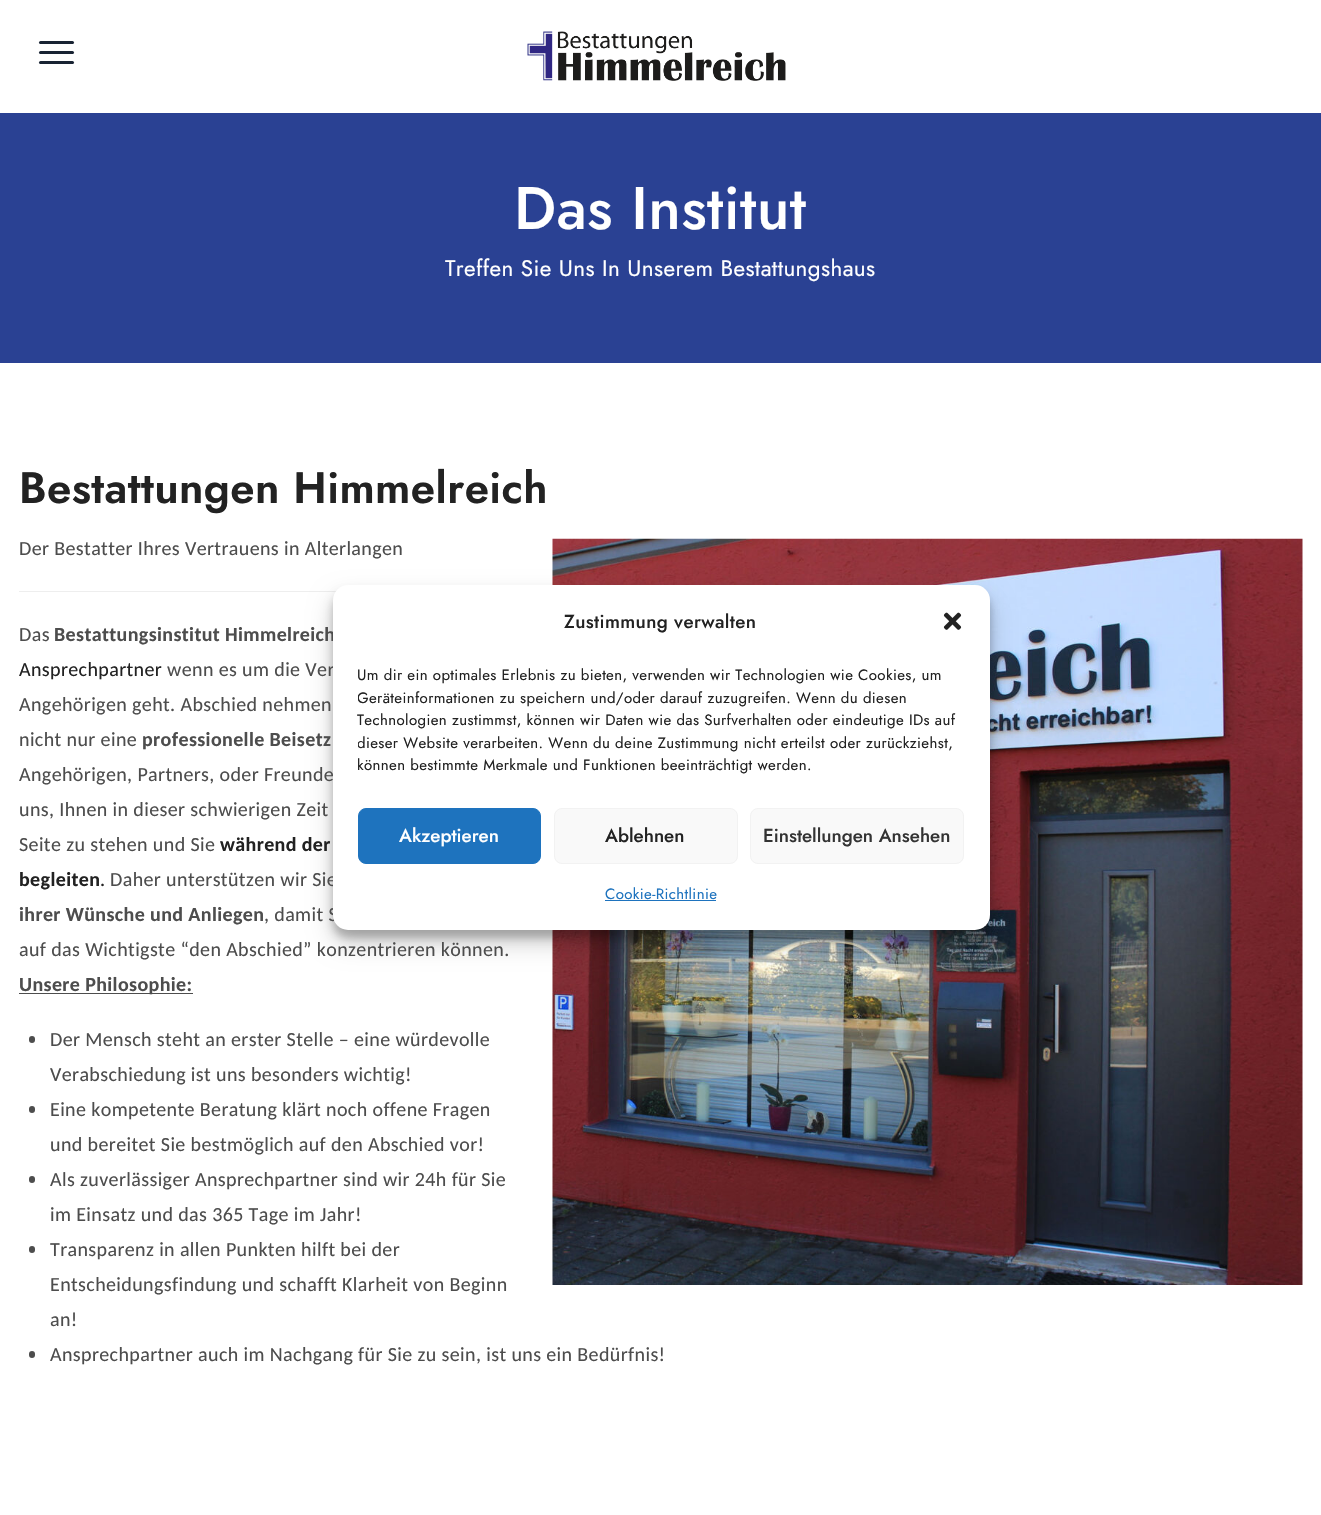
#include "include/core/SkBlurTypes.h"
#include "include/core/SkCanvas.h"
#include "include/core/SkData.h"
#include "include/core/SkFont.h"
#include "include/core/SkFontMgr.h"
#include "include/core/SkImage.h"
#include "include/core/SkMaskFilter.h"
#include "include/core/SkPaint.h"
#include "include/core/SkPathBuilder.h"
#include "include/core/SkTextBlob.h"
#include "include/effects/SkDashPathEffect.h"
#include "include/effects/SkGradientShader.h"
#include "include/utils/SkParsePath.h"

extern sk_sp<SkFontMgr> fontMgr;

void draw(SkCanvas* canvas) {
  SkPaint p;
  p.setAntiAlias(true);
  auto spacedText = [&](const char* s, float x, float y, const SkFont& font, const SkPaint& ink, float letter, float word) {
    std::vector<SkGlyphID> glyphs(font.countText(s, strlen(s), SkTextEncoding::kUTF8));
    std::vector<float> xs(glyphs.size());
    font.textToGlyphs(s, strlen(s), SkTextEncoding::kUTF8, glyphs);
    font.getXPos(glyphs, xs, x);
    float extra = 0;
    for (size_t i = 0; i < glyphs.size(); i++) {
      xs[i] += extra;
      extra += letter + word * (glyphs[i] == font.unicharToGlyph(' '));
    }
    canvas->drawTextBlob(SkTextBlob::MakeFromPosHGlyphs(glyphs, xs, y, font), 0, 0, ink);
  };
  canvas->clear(SK_ColorWHITE);
  p.setColor(SkColorSetRGB(24, 35, 51));
  canvas->drawRoundRect(SkRect::MakeLTRB(39, 51, 74, 54), 1.5f, 1.5f, p);
  canvas->drawRoundRect(SkRect::MakeLTRB(39, 41, 74, 44), 1.5f, 1.5f, p);
  canvas->drawRoundRect(SkRect::MakeLTRB(39, 61, 74, 64), 1.5f, 1.5f, p);
  canvas->drawImageRect(SkImages::DeferredFromEncodedData(SkData::MakeFromFileName("images/1.png")), SkRect::MakeLTRB(527, 31, 786, 81), SkSamplingOptions());
  p.setColor(SkColorSetRGB(42, 65, 147));
  canvas->drawRect(SkRect::MakeLTRB(0, 113, 1321, 363), p);
  canvas->drawImageRect(SkImages::DeferredFromEncodedData(SkData::MakeFromFileName("images/2.png")), SkRect::MakeLTRB(552, 538, 1303, 1285), SkSamplingOptions());
  p.setColor(SkColorSetRGB(238, 238, 238));
  canvas->drawRect(SkRect::MakeLTRB(19, 591, 336, 592), p);
  p.setColor(SkColorSetRGB(77, 77, 77));
  canvas->drawRect(SkRect::MakeLTRB(19, 993, 193, 994), p);
  canvas->drawRoundRect(SkRect::MakeLTRB(29, 1036, 35, 1043), 3, 3, p);
  canvas->drawRoundRect(SkRect::MakeLTRB(29, 1106, 35, 1113), 3, 3, p);
  canvas->drawRoundRect(SkRect::MakeLTRB(29, 1176, 35, 1183), 3, 3, p);
  canvas->drawRoundRect(SkRect::MakeLTRB(29, 1246, 35, 1253), 3, 3, p);
  canvas->drawRoundRect(SkRect::MakeLTRB(29, 1351, 35, 1358), 3, 3, p);
  p.setColor(SkColorSetARGB(59, 0, 0, 0));
  p.setMaskFilter(SkMaskFilter::MakeBlur(kNormal_SkBlurStyle, 4));
  canvas->drawRoundRect(SkRect::MakeLTRB(333, 593, 990, 938), 15, 15, p);
  p.setMaskFilter(nullptr);
  p.setColor(SkColorSetARGB(48, 0, 0, 0));
  p.setMaskFilter(SkMaskFilter::MakeBlur(kNormal_SkBlurStyle, 12.5f));
  canvas->drawRoundRect(SkRect::MakeLTRB(333, 598, 990, 943), 15, 15, p);
  p.setMaskFilter(nullptr);
  SkFont font1(fontMgr->matchFamilyStyle("Jost", SkFontStyle(500, SkFontStyle::kNormal_Width, SkFontStyle::kUpright_Slant)), 60);
  font1.setSubpixel(true);
  p.setColor(SK_ColorWHITE);
  spacedText("Das Institut", 514, 229, font1, p, 0.38f, 0);
  SkFont font2(fontMgr->matchFamilyStyle("Jost", SkFontStyle::Normal()), 22.5f);
  font2.setSubpixel(true);
  spacedText("Treffen Sie Uns In Unserem Bestattungshaus", 445, 276, font2, p, 0.38f, 0);
  SkFont font3(fontMgr->matchFamilyStyle("Jost", SkFontStyle(600, SkFontStyle::kNormal_Width, SkFontStyle::kUpright_Slant)), 43.75f);
  font3.setSubpixel(true);
  p.setColor(SkColorSetRGB(34, 34, 34));
  spacedText("Bestattungen Himmelreich", 19, 503, font3, p, 0.38f, 0);
  SkFont font4(fontMgr->matchFamilyStyle("Carlito", SkFontStyle::Normal()), 20);
  font4.setSubpixel(true);
  p.setColor(SkColorSetRGB(77, 77, 77));
  spacedText("Der Bestatter Ihres Vertrauens in Alterlangen", 19, 555, font4, p, 0.38f, 0);
  spacedText("Das", 19, 641, font4, p, 0.38f, 0);
  SkFont font5(fontMgr->matchFamilyStyle("Carlito", SkFontStyle::Bold()), 20);
  font5.setSubpixel(true);
  spacedText("Bestattungsinstitut Himmelreich", 54, 641, font5, p, 0.38f, 0);
  p.setColor(SkColorSetRGB(34, 34, 34));
  spacedText("Ansprechpartner", 19, 676, font4, p, 0.38f, 0);
  p.setColor(SkColorSetRGB(77, 77, 77));
  spacedText("wenn es um die Ver", 167, 676, font4, p, 0.38f, 0);
  spacedText("Angehörigen geht. Abschied nehmen", 19, 711, font4, p, 0.38f, 0);
  spacedText("nicht nur eine", 19, 746, font4, p, 0.38f, 0);
  spacedText("professionelle Beisetz", 142, 746, font5, p, 0.38f, 0);
  spacedText("Angehörigen, Partners, oder Freunde", 19, 781, font4, p, 0.38f, 0);
  spacedText("uns, Ihnen in dieser schwierigen Zeit", 19, 816, font4, p, 0.38f, 0);
  spacedText("Seite zu stehen und Sie", 19, 851, font4, p, 0.38f, 0);
  p.setColor(SkColorSetRGB(34, 34, 34));
  spacedText("während der", 220, 851, font5, p, 0.38f, 0);
  spacedText("begleiten", 19, 886, font5, p, 0.38f, 0);
  spacedText(".", 100, 886, font4, p, 0.38f, 0);
  p.setColor(SkColorSetRGB(77, 77, 77));
  spacedText("Daher unterstützen wir Sie", 110, 886, font4, p, 0.38f, 0);
  spacedText("ihrer Wünsche und Anliegen", 19, 921, font5, p, 0.38f, 0);
  spacedText(", damit S", 264, 921, font4, p, 0.38f, 0);
  spacedText("auf das Wichtigste “den Abschied” konzentrieren können.", 19, 956, font4, p, 0.38f, 0);
  spacedText("Unsere Philosophie:", 19, 991, font5, p, 0.38f, 0);
  spacedText("Der Mensch steht an erster Stelle – eine würdevolle", 50, 1046, font4, p, 0.38f, 0);
  spacedText("Verabschiedung ist uns besonders wichtig!", 50, 1081, font4, p, 0.38f, 0);
  spacedText("Eine kompetente Beratung klärt noch offene Fragen", 50, 1116, font4, p, 0.38f, 0);
  spacedText("und bereitet Sie bestmöglich auf den Abschied vor!", 50, 1151, font4, p, 0.38f, 0);
  spacedText("Als zuverlässiger Ansprechpartner sind wir 24h für Sie", 50, 1186, font4, p, 0.38f, 0);
  spacedText("im Einsatz und das 365 Tage im Jahr!", 50, 1221, font4, p, 0.38f, 0);
  spacedText("Transparenz in allen Punkten hilft bei der", 50, 1256, font4, p, 0.38f, 0);
  spacedText("Entscheidungsfindung und schafft Klarheit von Beginn", 50, 1291, font4, p, 0.38f, 0);
  spacedText("an!", 50, 1326, font4, p, 0.38f, 0);
  spacedText("Ansprechpartner auch im Nachgang für Sie zu sein, ist uns ein Bedürfnis!", 50, 1361, font4, p, 0.38f, 0);
  p.setColor(SK_ColorWHITE);
  canvas->drawRoundRect(SkRect::MakeLTRB(333, 585, 990, 930), 15, 15, p);
  SkFont font6(fontMgr->matchFamilyStyle("Jost", SkFontStyle(500, SkFontStyle::kNormal_Width, SkFontStyle::kUpright_Slant)), 18.75f);
  font6.setSubpixel(true);
  p.setColor(SkColorSetRGB(34, 34, 34));
  spacedText("Zustimmung verwalten", 564, 628, font6, p, 0.38f, 0);
  canvas->drawImageRect(SkImages::DeferredFromEncodedData(SkData::MakeFromFileName("images/3.png")), SkRect::MakeLTRB(943, 612, 962, 630), SkSamplingOptions());
  SkFont font7(fontMgr->matchFamilyStyle("Jost", SkFontStyle::Normal()), 15);
  font7.setSubpixel(true);
  spacedText("Um dir ein optimales Erlebnis zu bieten, verwenden wir Technologien wie Cookies, um", 357, 680, font7, p, 0.38f, 0);
  canvas->save();
  canvas->clipRect(SkRect::MakeLTRB(358, 664, 965, 783));
  spacedText("Geräteinformationen zu speichern und/oder darauf zuzugreifen. Wenn du diesen", 357, 703, font7, p, 0.38f, 0);
  canvas->restore();
  spacedText("Technologien zustimmst, können wir Daten wie das Surfverhalten oder eindeutige IDs auf", 357, 725, font7, p, 0.38f, 0);
  canvas->save();
  canvas->clipRect(SkRect::MakeLTRB(358, 664, 965, 783));
  spacedText("dieser Website verarbeiten. Wenn du deine Zustimmung nicht erteilst oder zurückziehst,", 357, 748, font7, p, 0.38f, 0);
  spacedText("können bestimmte Merkmale und Funktionen beeinträchtigt werden.", 357, 770, font7, p, 0.38f, 0);
  canvas->restore();
  p.setColor(SkColorSetRGB(30, 115, 190));
  canvas->drawRoundRect(SkRect::MakeLTRB(358.5f, 808.5f, 540.5f, 863.5f), 7.5f, 7.5f, p);
  p.setStyle(SkPaint::kStroke_Style);
  p.setStrokeWidth(1);
  canvas->drawRoundRect(SkRect::MakeLTRB(358.5f, 808.5f, 540.5f, 863.5f), 7.5f, 7.5f, p);
  p.setStyle(SkPaint::kFill_Style);
  p.setColor(SK_ColorWHITE);
  canvas->drawString("Akzeptieren", 399, 842, font6, p);
  p.setColor(SkColorSetRGB(249, 249, 249));
  canvas->drawRoundRect(SkRect::MakeLTRB(554.5f, 808.5f, 737.5f, 863.5f), 7.5f, 7.5f, p);
  p.setStyle(SkPaint::kStroke_Style);
  p.setColor(SkColorSetRGB(242, 242, 242));
  canvas->drawRoundRect(SkRect::MakeLTRB(554.5f, 808.5f, 737.5f, 863.5f), 7.5f, 7.5f, p);
  p.setStyle(SkPaint::kFill_Style);
  p.setColor(SkColorSetRGB(34, 34, 34));
  canvas->drawString("Ablehnen", 605, 842, font6, p);
  p.setColor(SkColorSetRGB(249, 249, 249));
  canvas->drawRoundRect(SkRect::MakeLTRB(750.5f, 808.5f, 963.5f, 863.5f), 7.5f, 7.5f, p);
  p.setStyle(SkPaint::kStroke_Style);
  p.setColor(SkColorSetRGB(242, 242, 242));
  canvas->drawRoundRect(SkRect::MakeLTRB(750.5f, 808.5f, 963.5f, 863.5f), 7.5f, 7.5f, p);
  p.setStyle(SkPaint::kFill_Style);
  p.setColor(SkColorSetRGB(51, 51, 51));
  canvas->drawString("Einstellungen Ansehen", 763, 842, font6, p);
  p.setColor(SkColorSetRGB(30, 115, 190));
  spacedText("Cookie-Richtlinie", 605, 899, font7, p, 0.38f, 0);
  canvas->drawRect(SkRect::MakeLTRB(605, 900, 716, 901), p);
}
